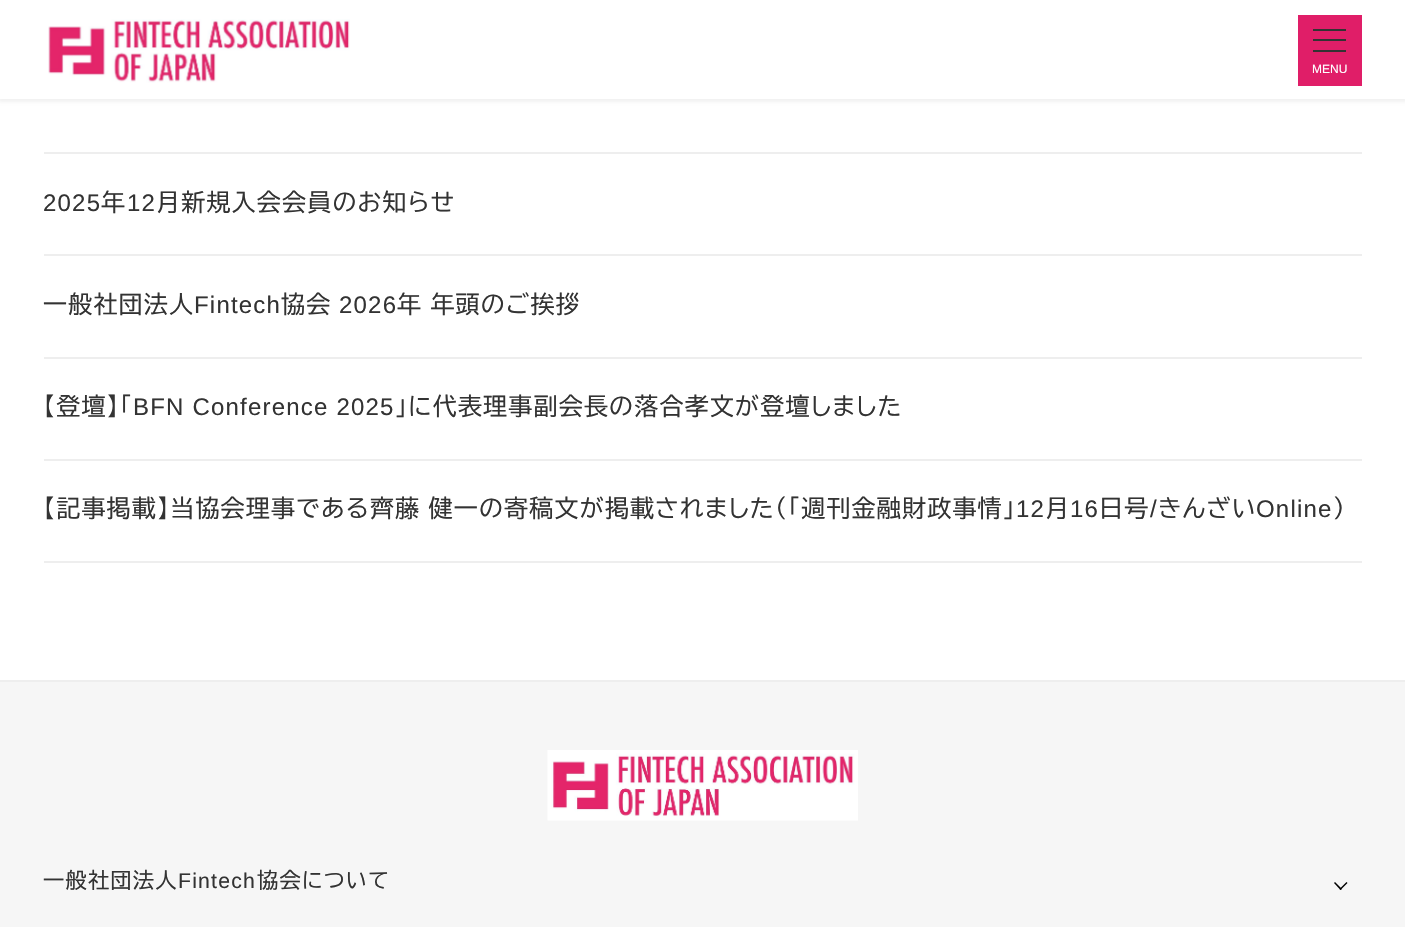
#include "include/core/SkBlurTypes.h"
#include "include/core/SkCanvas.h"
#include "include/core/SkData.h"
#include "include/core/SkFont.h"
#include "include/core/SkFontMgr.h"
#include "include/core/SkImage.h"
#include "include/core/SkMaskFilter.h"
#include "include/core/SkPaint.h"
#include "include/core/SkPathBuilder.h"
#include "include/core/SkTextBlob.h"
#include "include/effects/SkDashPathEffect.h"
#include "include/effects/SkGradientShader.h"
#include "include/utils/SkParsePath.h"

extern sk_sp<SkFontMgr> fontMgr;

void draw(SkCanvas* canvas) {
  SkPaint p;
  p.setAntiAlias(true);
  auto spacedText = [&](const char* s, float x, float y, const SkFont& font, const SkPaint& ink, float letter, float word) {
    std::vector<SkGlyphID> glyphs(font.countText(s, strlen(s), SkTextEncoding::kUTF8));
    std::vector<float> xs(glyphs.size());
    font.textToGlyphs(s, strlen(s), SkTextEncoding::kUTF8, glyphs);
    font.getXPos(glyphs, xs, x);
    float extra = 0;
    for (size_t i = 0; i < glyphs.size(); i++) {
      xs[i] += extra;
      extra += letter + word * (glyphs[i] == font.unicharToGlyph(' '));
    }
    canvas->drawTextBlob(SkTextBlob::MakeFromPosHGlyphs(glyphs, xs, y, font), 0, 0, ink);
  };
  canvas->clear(SK_ColorWHITE);
  p.setColor(SkColorSetARGB(13, 0, 0, 0));
  p.setMaskFilter(SkMaskFilter::MakeBlur(kNormal_SkBlurStyle, 1.5f));
  canvas->drawRect(SkRect::MakeLTRB(-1, 0, 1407, 102), p);
  p.setMaskFilter(nullptr);
  p.setColor(SK_ColorWHITE);
  canvas->drawRect(SkRect::MakeLTRB(0, 0, 1405, 99), p);
  canvas->drawImageRect(SkImages::DeferredFromEncodedData(SkData::MakeFromFileName("images/1.png")), SkRect::MakeLTRB(48, 19, 350, 83), SkSamplingOptions());
  p.setColor(SkColorSetRGB(224, 30, 104));
  canvas->drawRect(SkRect::MakeLTRB(1298, 15, 1362, 86), p);
  p.setColor(SkColorSetRGB(51, 51, 51));
  canvas->drawRect(SkRect::MakeLTRB(1313, 29, 1346, 31), p);
  canvas->drawRect(SkRect::MakeLTRB(1313, 39, 1346, 41), p);
  canvas->drawRect(SkRect::MakeLTRB(1313, 50, 1346, 52), p);
  p.setColor(SkColorSetRGB(238, 238, 238));
  canvas->drawRect(SkRect::MakeLTRB(44, 152, 1362, 154), p);
  canvas->drawRect(SkRect::MakeLTRB(44, 254, 1362, 256), p);
  canvas->drawRect(SkRect::MakeLTRB(44, 357, 1362, 359), p);
  canvas->drawRect(SkRect::MakeLTRB(44, 459, 1362, 461), p);
  canvas->drawRect(SkRect::MakeLTRB(44, 561, 1362, 563), p);
  p.setColor(SkColorSetRGB(246, 246, 246));
  canvas->drawRect(SkRect::MakeLTRB(0, 682, 1405, 927), p);
  p.setColor(SkColorSetRGB(238, 238, 238));
  canvas->drawRect(SkRect::MakeLTRB(0, 680, 1405, 682), p);
  canvas->drawImageRect(SkImages::DeferredFromEncodedData(SkData::MakeFromFileName("images/2.png")), SkRect::MakeLTRB(547, 750, 858, 821), SkSamplingOptions());
  p.setColor(SK_ColorBLACK);
  canvas->drawPath(SkPathBuilder().moveTo(1347.5f, 883).lineTo(1340.5f, 890).lineTo(1339.5f, 889).lineTo(1346.5f, 882).close().detach(), p);
  canvas->drawPath(SkPathBuilder().moveTo(1342, 889).lineTo(1340.5f, 890).lineTo(1334, 883).lineTo(1335, 882).close().detach(), p);
  SkFont font1(fontMgr->matchFamilyStyle("Liberation Sans", SkFontStyle::Normal()), 12);
  font1.setSubpixel(true);
  p.setColor(SK_ColorWHITE);
  canvas->drawString("MENU", 1312, 73, font1, p);
  SkFont font2(fontMgr->matchFamilyStyle("Liberation Sans", SkFontStyle::Normal()), 24);
  font2.setSubpixel(true);
  p.setColor(SkColorSetRGB(51, 51, 51));
  spacedText("2025", 43, 211, font2, p, 1.2f, 0);
  SkFont font3(fontMgr->matchFamilyStyle("BIZ UDPGothic", SkFontStyle::Normal()), 24);
  font3.setSubpixel(true);
  spacedText("年", 101, 211, font3, p, 1.2f, 0);
  spacedText("12", 127, 211, font2, p, 1.2f, 0);
  spacedText("月新規入会会員のお知らせ", 156, 211, font3, p, 1.2f, 0);
  spacedText("一般社団法人", 43, 313, font3, p, 1.2f, 0);
  spacedText("Fintech", 194, 313, font2, p, 1.2f, 0);
  spacedText("協会", 281, 313, font3, p, 1.2f, 0);
  spacedText("2026", 339, 313, font2, p, 1.2f, 0);
  spacedText("年 年頭のご挨拶", 397, 313, font3, p, 1.2f, -1);
  spacedText("【登壇】「", 43, 415, font3, p, 1.2f, 0);
  spacedText("BFN Conference 2025", 133, 415, font2, p, 1.2f, 0);
  spacedText("」に代表理事副会長の落合孝文が登壇しました", 395, 415, font3, p, 1.2f, 0);
  spacedText("【記事掲載】当協会理事である齊藤 健一の寄稿文が掲載されました（「週刊金融財政事情」", 43, 517, font3, p, 1.2f, -1);
  spacedText("12", 1016, 517, font2, p, 1.2f, 0);
  spacedText("月", 1045, 517, font3, p, 1.2f, 0);
  spacedText("16", 1070, 517, font2, p, 1.2f, 0);
  spacedText("日号", 1099, 517, font3, p, 1.2f, 0);
  spacedText("/", 1150, 517, font2, p, 1.2f, 0);
  spacedText("きんざい", 1158, 517, font3, p, 1.2f, 0);
  spacedText("Online", 1256, 517, font2, p, 1.2f, 0);
  spacedText("）", 1333, 517, font3, p, 1.2f, 0);
  SkFont font4(fontMgr->matchFamilyStyle("BIZ UDPGothic", SkFontStyle::Normal()), 21.25f);
  font4.setSubpixel(true);
  spacedText("一般社団法人", 43, 888, font4, p, 1.2f, 0);
  SkFont font5(fontMgr->matchFamilyStyle("Liberation Sans", SkFontStyle::Normal()), 21.25f);
  font5.setSubpixel(true);
  spacedText("Fintech", 178, 888, font5, p, 1.2f, 0);
  spacedText("協会について", 257, 888, font4, p, 1.2f, 0);
}
